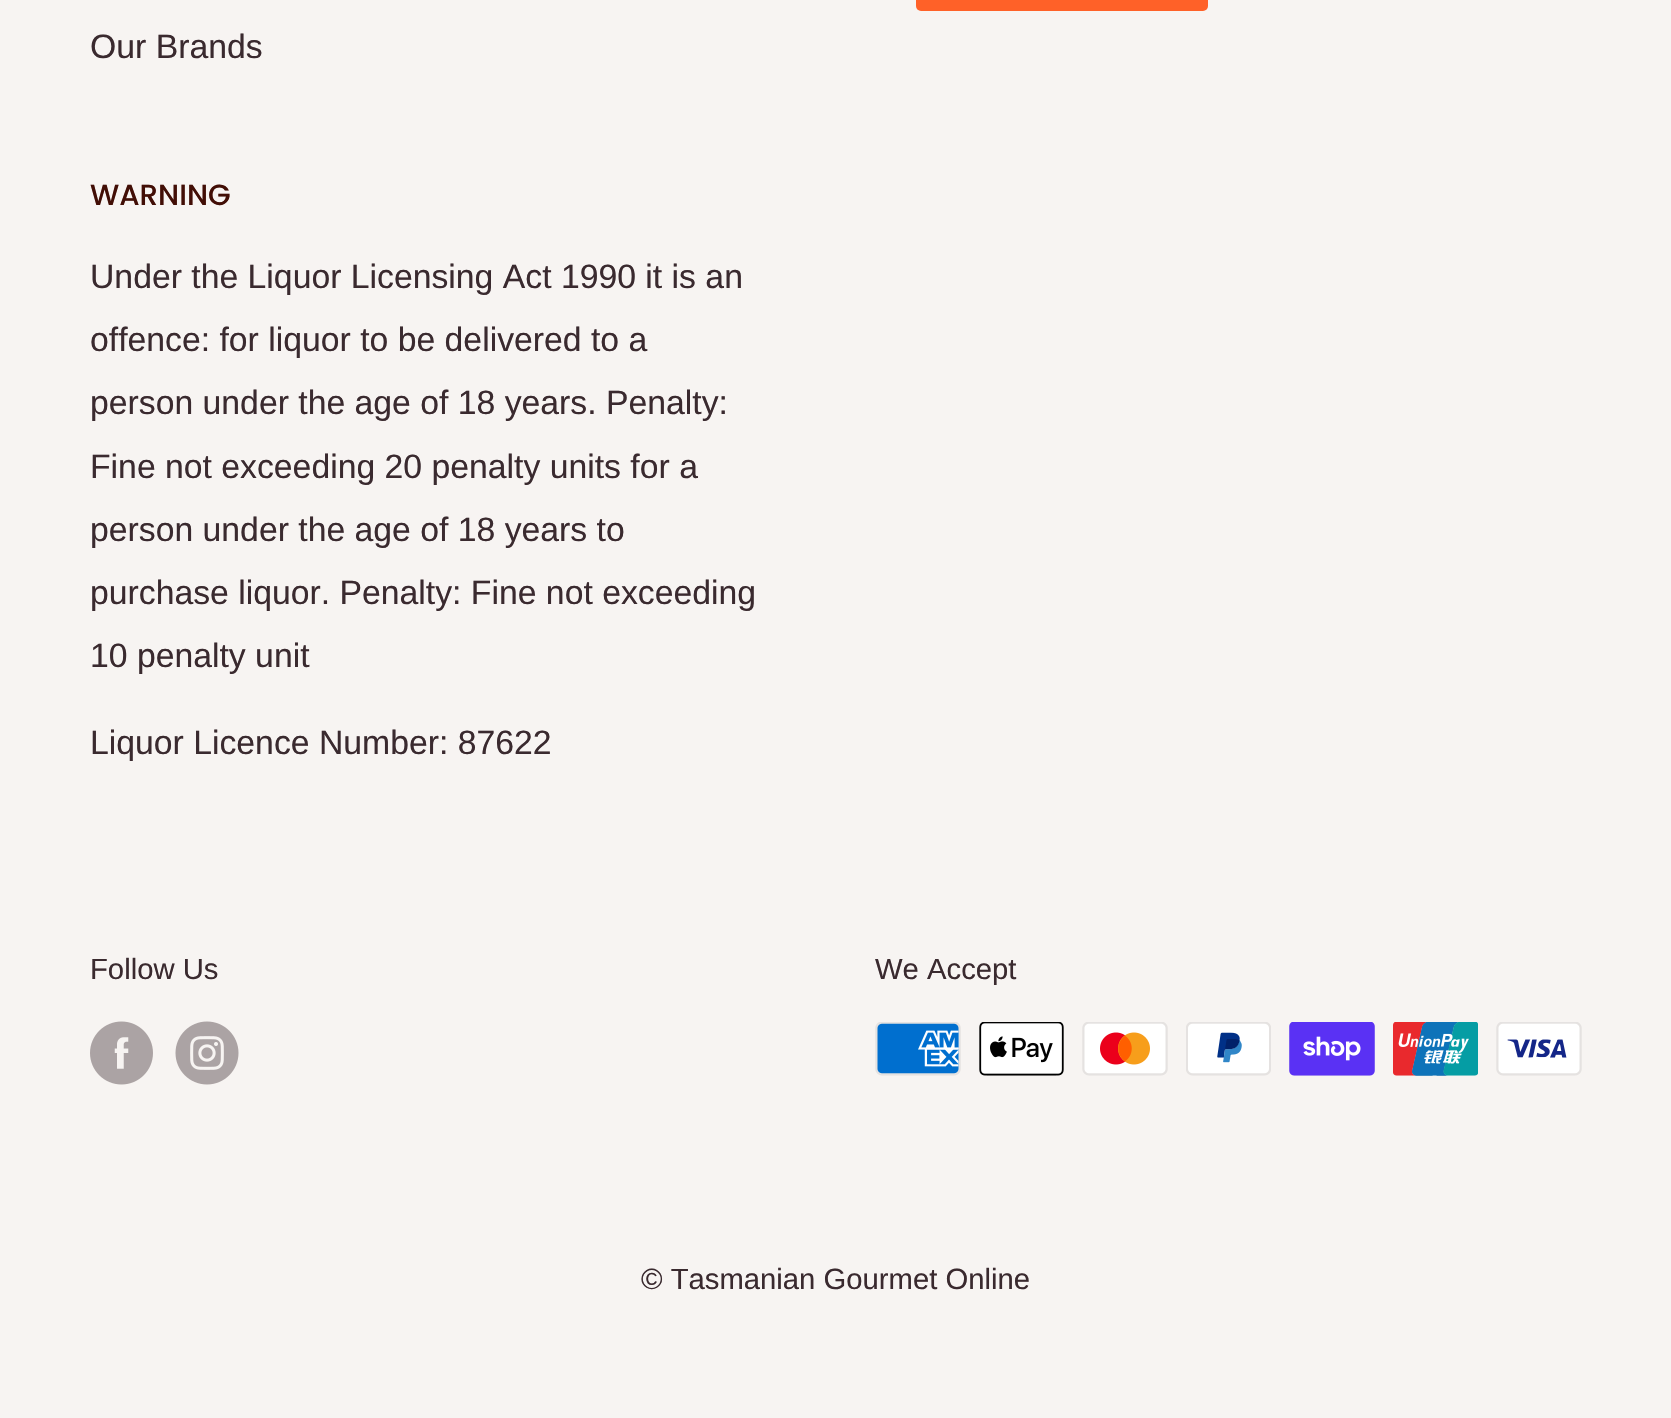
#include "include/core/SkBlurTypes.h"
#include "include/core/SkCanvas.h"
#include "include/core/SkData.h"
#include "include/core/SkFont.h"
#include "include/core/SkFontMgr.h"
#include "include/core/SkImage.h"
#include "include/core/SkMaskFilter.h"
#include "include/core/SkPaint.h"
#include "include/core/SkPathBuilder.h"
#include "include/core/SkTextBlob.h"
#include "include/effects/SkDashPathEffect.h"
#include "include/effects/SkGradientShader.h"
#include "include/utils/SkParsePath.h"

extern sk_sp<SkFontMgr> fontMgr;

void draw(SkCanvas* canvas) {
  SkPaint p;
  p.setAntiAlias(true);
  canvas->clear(SkColorSetRGB(247, 244, 242));
  p.setColor(SkColorSetRGB(255, 97, 40));
  canvas->drawRoundRect(SkRect::MakeLTRB(916, -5, 1208, 11), 5, 5, p);
  canvas->drawImageRect(SkImages::DeferredFromEncodedData(SkData::MakeFromFileName("images/1.png")), SkRect::MakeLTRB(90, 1021, 153, 1085), SkSamplingOptions());
  canvas->drawImageRect(SkImages::DeferredFromEncodedData(SkData::MakeFromFileName("images/2.png")), SkRect::MakeLTRB(175, 1021, 239, 1085), SkSamplingOptions());
  canvas->drawImageRect(SkImages::DeferredFromEncodedData(SkData::MakeFromFileName("images/3.png")), SkRect::MakeLTRB(875, 1022, 961, 1076), SkSamplingOptions());
  canvas->drawImageRect(SkImages::DeferredFromEncodedData(SkData::MakeFromFileName("images/4.png")), SkRect::MakeLTRB(979, 1022, 1064, 1076), SkSamplingOptions());
  canvas->drawImageRect(SkImages::DeferredFromEncodedData(SkData::MakeFromFileName("images/5.png")), SkRect::MakeLTRB(1082, 1022, 1168, 1076), SkSamplingOptions());
  canvas->drawImageRect(SkImages::DeferredFromEncodedData(SkData::MakeFromFileName("images/6.png")), SkRect::MakeLTRB(1186, 1022, 1271, 1076), SkSamplingOptions());
  canvas->drawImageRect(SkImages::DeferredFromEncodedData(SkData::MakeFromFileName("images/7.png")), SkRect::MakeLTRB(1289, 1022, 1375, 1076), SkSamplingOptions());
  canvas->drawImageRect(SkImages::DeferredFromEncodedData(SkData::MakeFromFileName("images/8.png")), SkRect::MakeLTRB(1393, 1022, 1478, 1076), SkSamplingOptions());
  canvas->drawImageRect(SkImages::DeferredFromEncodedData(SkData::MakeFromFileName("images/9.png")), SkRect::MakeLTRB(1496, 1022, 1582, 1076), SkSamplingOptions());
  SkFont font1(fontMgr->matchFamilyStyle("Arimo", SkFontStyle::Normal()), 33.75f);
  font1.setSubpixel(true);
  p.setColor(SkColorSetRGB(58, 42, 47));
  canvas->drawString("Our Brands", 90, 58, font1, p);
  SkFont font2(fontMgr->matchFamilyStyle("Poppins", SkFontStyle(500, SkFontStyle::kNormal_Width, SkFontStyle::kUpright_Slant)), 29.25f);
  font2.setSubpixel(true);
  p.setColor(SkColorSetRGB(66, 14, 6));
  canvas->drawString("WARNING", 90, 205, font2, p);
  p.setColor(SkColorSetRGB(58, 42, 47));
  canvas->drawString("Under the Liquor Licensing Act 1990 it is an", 90, 288, font1, p);
  canvas->drawString("offence: for liquor to be delivered to a", 90, 351, font1, p);
  canvas->drawString("person under the age of 18 years. Penalty:", 90, 414, font1, p);
  canvas->drawString("Fine not exceeding 20 penalty units for a", 90, 478, font1, p);
  canvas->drawString("person under the age of 18 years to", 90, 541, font1, p);
  canvas->drawString("purchase liquor. Penalty: Fine not exceeding", 90, 604, font1, p);
  canvas->drawString("10 penalty unit", 90, 667, font1, p);
  canvas->drawString("Liquor Licence Number: 87622", 90, 754, font1, p);
  SkFont font3(fontMgr->matchFamilyStyle("Arimo", SkFontStyle::Normal()), 29.25f);
  font3.setSubpixel(true);
  canvas->drawString("Follow Us", 90, 979, font3, p);
  canvas->drawString("We Accept", 875, 979, font3, p);
  canvas->drawString("© Tasmanian Gourmet Online", 641, 1289, font3, p);
}
